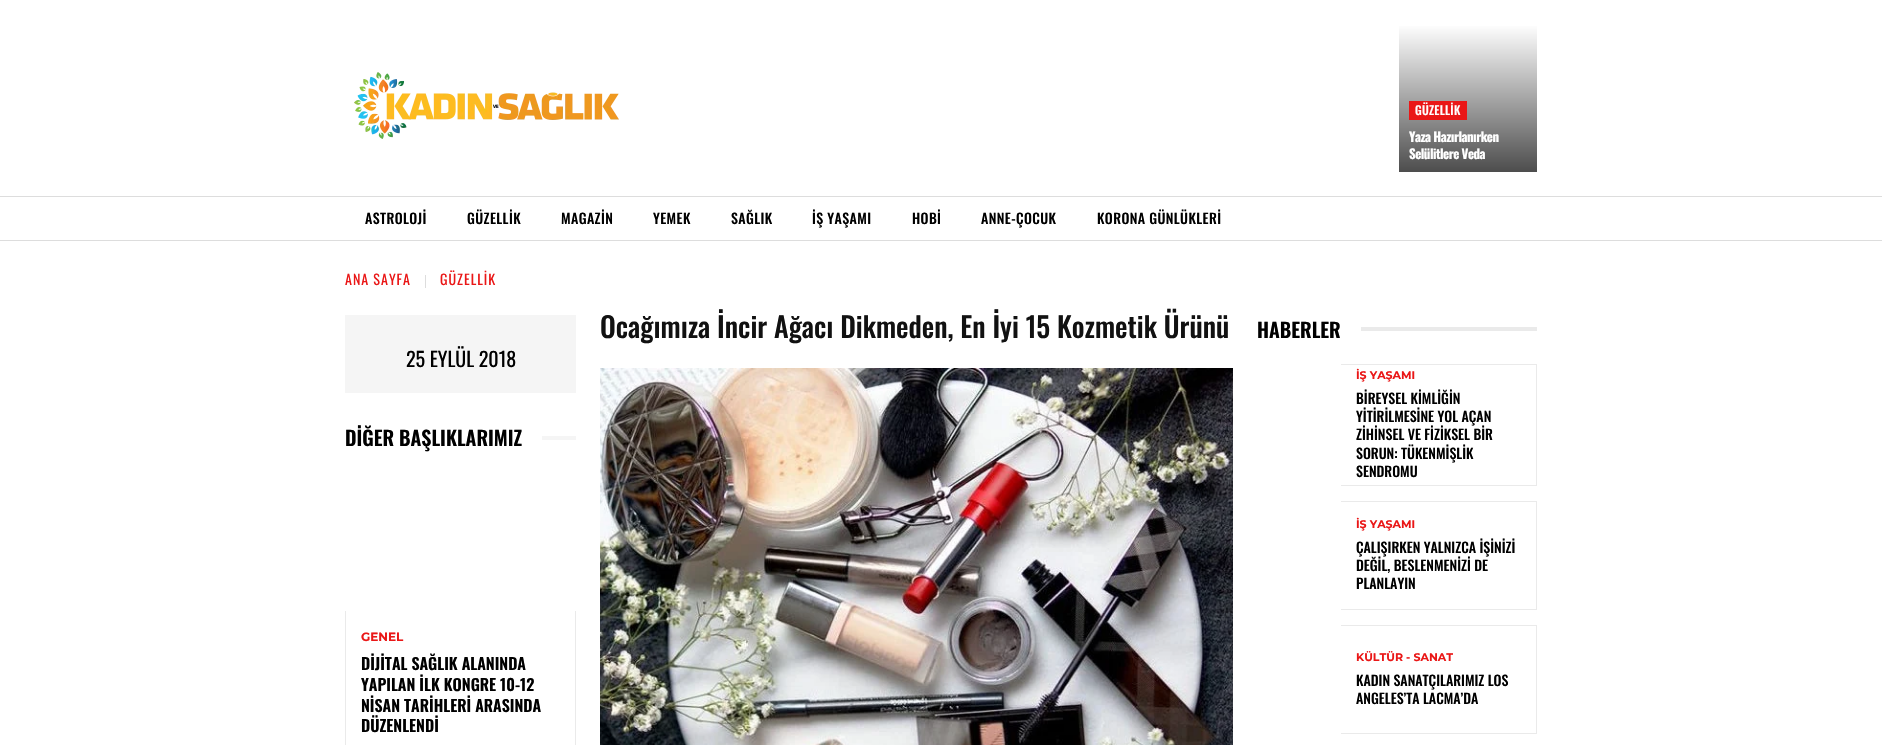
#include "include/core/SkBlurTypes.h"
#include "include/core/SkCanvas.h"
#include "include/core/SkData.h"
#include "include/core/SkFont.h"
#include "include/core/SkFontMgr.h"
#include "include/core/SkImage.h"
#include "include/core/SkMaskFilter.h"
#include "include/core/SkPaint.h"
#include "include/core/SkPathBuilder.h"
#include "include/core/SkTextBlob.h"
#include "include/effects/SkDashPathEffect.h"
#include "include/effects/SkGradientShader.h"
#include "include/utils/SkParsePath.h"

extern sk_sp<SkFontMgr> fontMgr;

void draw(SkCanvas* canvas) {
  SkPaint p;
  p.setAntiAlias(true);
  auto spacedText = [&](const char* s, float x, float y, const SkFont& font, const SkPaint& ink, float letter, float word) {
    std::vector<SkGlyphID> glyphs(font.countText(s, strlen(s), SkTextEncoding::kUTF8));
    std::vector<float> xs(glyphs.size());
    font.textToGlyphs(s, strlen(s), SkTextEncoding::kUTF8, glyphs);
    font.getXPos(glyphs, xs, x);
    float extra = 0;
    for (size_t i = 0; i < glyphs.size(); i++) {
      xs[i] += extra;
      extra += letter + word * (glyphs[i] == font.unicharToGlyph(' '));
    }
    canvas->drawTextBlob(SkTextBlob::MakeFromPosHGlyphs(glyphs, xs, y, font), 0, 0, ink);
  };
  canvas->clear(SK_ColorWHITE);
  canvas->drawImageRect(SkImages::DeferredFromEncodedData(SkData::MakeFromFileName("images/1.png")), SkRect::MakeLTRB(354, 72, 619, 139), SkSamplingOptions());
  {
    const SkColor colors[] = {SkColorSetRGB(77, 77, 77), SK_ColorWHITE};
    const float stops[] = {0, 1};
    const SkPoint ends[] = {{1468, 172}, {1468, 24}};
    p.setShader(SkGradientShader::MakeLinear(ends, colors, stops, 2, SkTileMode::kClamp));
    p.setAlpha(255);
  }
  canvas->drawRect(SkRect::MakeLTRB(1399, 26, 1537, 172), p);
  p.setShader(nullptr);
  p.setColor(SkColorSetRGB(234, 23, 23));
  canvas->drawRect(SkRect::MakeLTRB(1409, 101, 1467, 120), p);
  p.setColor(SkColorSetRGB(221, 221, 221));
  canvas->drawRect(SkRect::MakeLTRB(0, 196, 1882, 197), p);
  canvas->drawRect(SkRect::MakeLTRB(0, 240, 1882, 241), p);
  canvas->drawRect(SkRect::MakeLTRB(425, 275, 426, 288), p);
  canvas->drawImageRect(SkImages::DeferredFromEncodedData(SkData::MakeFromFileName("images/2.png")), SkRect::MakeLTRB(600, 368, 1233, 745), SkSamplingOptions());
  p.setColor(SkColorSetRGB(245, 245, 245));
  canvas->drawRect(SkRect::MakeLTRB(345, 315, 576, 393), p);
  canvas->drawRect(SkRect::MakeLTRB(542, 436, 576, 440), p);
  p.setColor(SkColorSetRGB(234, 234, 234));
  canvas->drawRect(SkRect::MakeLTRB(575, 611, 576, 745), p);
  canvas->drawRect(SkRect::MakeLTRB(345, 611, 346, 745), p);
  canvas->drawRect(SkRect::MakeLTRB(1361, 327, 1537, 331), p);
  canvas->drawRect(SkRect::MakeLTRB(1341, 364, 1537, 365), p);
  canvas->drawRect(SkRect::MakeLTRB(1536, 364, 1537, 486), p);
  canvas->drawRect(SkRect::MakeLTRB(1341, 485, 1537, 486), p);
  canvas->drawRect(SkRect::MakeLTRB(1341, 501, 1537, 502), p);
  canvas->drawRect(SkRect::MakeLTRB(1536, 501, 1537, 610), p);
  canvas->drawRect(SkRect::MakeLTRB(1341, 609, 1537, 610), p);
  canvas->drawRect(SkRect::MakeLTRB(1341, 625, 1537, 626), p);
  canvas->drawRect(SkRect::MakeLTRB(1536, 625, 1537, 734), p);
  canvas->drawRect(SkRect::MakeLTRB(1341, 733, 1537, 734), p);
  SkFont font1(fontMgr->matchFamilyStyle("Oswald", SkFontStyle(500, SkFontStyle::kNormal_Width, SkFontStyle::kUpright_Slant)), 12);
  font1.setSubpixel(true);
  p.setColor(SK_ColorWHITE);
  spacedText("GÜZELLİK", 1415, 115, font1, p, 0.25f, 0);
  SkFont font2(fontMgr->matchFamilyStyle("Oswald", SkFontStyle::Bold()), 13);
  font2.setSubpixel(true);
  spacedText("Yaza Hazırlanırken", 1409, 142, font2, p, -0.5f, 0);
  spacedText("Selülitlere Veda", 1409, 159, font2, p, -0.5f, 0);
  SkFont font3(fontMgr->matchFamilyStyle("Oswald", SkFontStyle(500, SkFontStyle::kNormal_Width, SkFontStyle::kUpright_Slant)), 14);
  font3.setSubpixel(true);
  p.setColor(SK_ColorBLACK);
  spacedText("ASTROLOJİ", 365, 224, font3, p, 0.4f, 0);
  spacedText("GÜZELLİK", 467, 224, font3, p, 0.4f, 0);
  spacedText("MAGAZİN", 561, 224, font3, p, 0.4f, 0);
  spacedText("YEMEK", 653, 224, font3, p, 0.4f, 0);
  spacedText("SAĞLIK", 731, 224, font3, p, 0.4f, 0);
  spacedText("İŞ YAŞAMI", 812, 224, font3, p, 0.4f, 0);
  spacedText("HOBİ", 912, 224, font3, p, 0.4f, 0);
  spacedText("ANNE-ÇOCUK", 981, 224, font3, p, 0.4f, 0);
  spacedText("KORONA GÜNLÜKLERİ", 1097, 224, font3, p, 0.4f, 0);
  SkFont font4(fontMgr->matchFamilyStyle("Oswald", SkFontStyle::Normal()), 14);
  font4.setSubpixel(true);
  p.setColor(SkColorSetRGB(234, 23, 23));
  spacedText("ANA SAYFA", 345, 285, font4, p, 1, 0);
  spacedText("GÜZELLİK", 440, 285, font4, p, 1, 0);
  SkFont font5(fontMgr->matchFamilyStyle("Oswald", SkFontStyle(500, SkFontStyle::kNormal_Width, SkFontStyle::kUpright_Slant)), 28);
  font5.setSubpixel(true);
  p.setColor(SkColorSetRGB(17, 17, 17));
  canvas->drawString("Ocağımıza İncir Ağacı Dikmeden, En İyi 15 Kozmetik Ürünü", 600, 338, font5, p);
  SkFont font6(fontMgr->matchFamilyStyle("Oswald", SkFontStyle::Normal()), 20);
  font6.setSubpixel(true);
  p.setColor(SK_ColorBLACK);
  canvas->drawString("25 EYLÜL 2018", 406, 367, font6, p);
  SkFont font7(fontMgr->matchFamilyStyle("Oswald", SkFontStyle(600, SkFontStyle::kNormal_Width, SkFontStyle::kUpright_Slant)), 20);
  font7.setSubpixel(true);
  canvas->drawString("DİĞER BAŞLIKLARIMIZ", 345, 446, font7, p);
  SkFont font8(fontMgr->matchFamilyStyle("Montserrat", SkFontStyle::Bold()), 12);
  font8.setSubpixel(true);
  p.setColor(SkColorSetRGB(234, 23, 23));
  canvas->drawString("GENEL", 361, 641, font8, p);
  SkFont font9(fontMgr->matchFamilyStyle("Oswald", SkFontStyle(600, SkFontStyle::kNormal_Width, SkFontStyle::kUpright_Slant)), 16);
  font9.setSubpixel(true);
  p.setColor(SK_ColorBLACK);
  canvas->drawString("DİJİTAL SAĞLIK ALANINDA", 361, 670, font9, p);
  canvas->drawString("YAPILAN İLK KONGRE 10-12", 361, 691, font9, p);
  canvas->drawString("NİSAN TARİHLERİ ARASINDA", 361, 712, font9, p);
  canvas->drawString("DÜZENLENDİ", 361, 732, font9, p);
  canvas->drawString("HABERLER", 1257, 338, font7, p);
  SkFont font10(fontMgr->matchFamilyStyle("Montserrat", SkFontStyle::Bold()), 11);
  font10.setSubpixel(true);
  p.setColor(SkColorSetRGB(234, 23, 23));
  canvas->drawString("İŞ YAŞAMI", 1356, 379, font10, p);
  p.setColor(SK_ColorBLACK);
  canvas->drawString("BİREYSEL KİMLİĞİN", 1356, 404, font3, p);
  canvas->drawString("YİTİRİLMESİNE YOL AÇAN", 1356, 422, font3, p);
  canvas->drawString("ZİHİNSEL VE FİZİKSEL BİR", 1356, 440, font3, p);
  canvas->drawString("SORUN: TÜKENMİŞLİK", 1356, 459, font3, p);
  canvas->drawString("SENDROMU", 1356, 477, font3, p);
  p.setColor(SkColorSetRGB(234, 23, 23));
  canvas->drawString("İŞ YAŞAMI", 1356, 528, font10, p);
  p.setColor(SK_ColorBLACK);
  canvas->drawString("ÇALIŞIRKEN YALNIZCA İŞİNİZİ", 1356, 553, font3, p);
  canvas->drawString("DEĞİL, BESLENMENİZİ DE", 1356, 571, font3, p);
  canvas->drawString("PLANLAYIN", 1356, 589, font3, p);
  p.setColor(SkColorSetRGB(234, 23, 23));
  canvas->drawString("KÜLTÜR - SANAT", 1356, 661, font10, p);
  p.setColor(SK_ColorBLACK);
  canvas->drawString("KADIN SANATÇILARIMIZ LOS", 1356, 686, font3, p);
  canvas->drawString("ANGELES’TA LACMA’DA", 1356, 704, font3, p);
}
